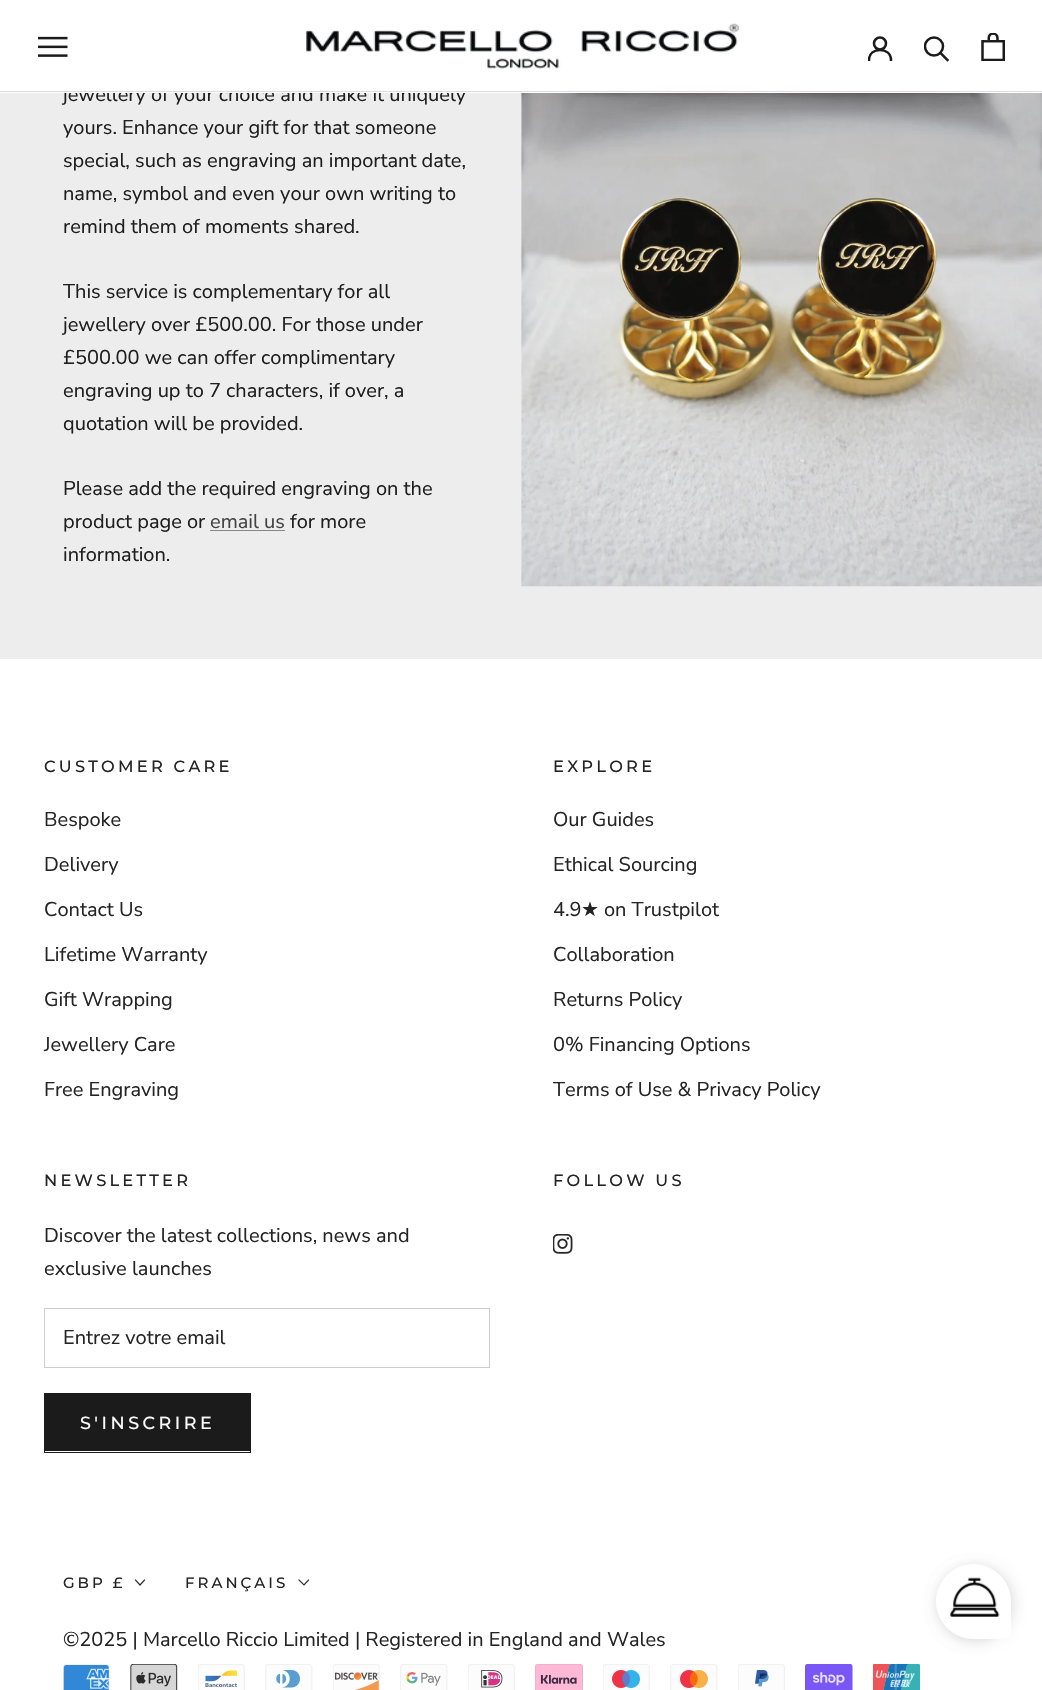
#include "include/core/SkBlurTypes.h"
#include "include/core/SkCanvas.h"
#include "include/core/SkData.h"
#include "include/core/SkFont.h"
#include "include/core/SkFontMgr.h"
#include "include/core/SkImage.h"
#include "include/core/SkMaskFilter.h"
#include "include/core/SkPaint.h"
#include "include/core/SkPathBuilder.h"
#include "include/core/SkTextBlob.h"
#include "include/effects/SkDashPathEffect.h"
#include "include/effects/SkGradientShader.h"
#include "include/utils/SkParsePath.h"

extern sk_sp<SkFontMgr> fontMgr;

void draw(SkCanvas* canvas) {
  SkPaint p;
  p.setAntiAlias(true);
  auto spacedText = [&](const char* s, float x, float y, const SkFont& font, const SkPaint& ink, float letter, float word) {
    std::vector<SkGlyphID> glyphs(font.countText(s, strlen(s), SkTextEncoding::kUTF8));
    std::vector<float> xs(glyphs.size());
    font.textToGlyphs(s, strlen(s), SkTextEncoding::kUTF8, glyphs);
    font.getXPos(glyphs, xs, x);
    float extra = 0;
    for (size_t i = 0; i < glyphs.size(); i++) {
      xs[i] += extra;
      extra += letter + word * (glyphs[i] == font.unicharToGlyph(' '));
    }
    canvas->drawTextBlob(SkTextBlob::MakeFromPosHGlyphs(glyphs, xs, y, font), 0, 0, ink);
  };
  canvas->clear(SkColorSetRGB(237, 237, 237));
  p.setColor(SkColorSetRGB(135, 135, 135));
  canvas->drawRect(SkRect::MakeLTRB(210, 530, 285, 531), p);
  canvas->drawImageRect(SkImages::DeferredFromEncodedData(SkData::MakeFromFileName("images/4.png")), SkRect::MakeLTRB(521, 93, 1042, 587), SkSamplingOptions());
  p.setColor(SK_ColorWHITE);
  canvas->drawRect(SkRect::MakeLTRB(0, 659, 1042, 1690), p);
  p.setStyle(SkPaint::kStroke_Style);
  p.setStrokeWidth(1);
  p.setColor(SkColorSetRGB(206, 206, 206));
  canvas->drawRect(SkRect::MakeLTRB(44.5f, 1308.5f, 489.5f, 1367.5f), p);
  p.setColor(SkColorSetRGB(28, 27, 27));
  canvas->drawRect(SkRect::MakeLTRB(44.5f, 1393.5f, 250.5f, 1452.5f), p);
  p.setStyle(SkPaint::kFill_Style);
  canvas->drawRect(SkRect::MakeLTRB(45, 1394, 250, 1451), p);
  canvas->drawImageRect(SkImages::DeferredFromEncodedData(SkData::MakeFromFileName("images/5.png")), SkRect::MakeLTRB(553, 1234, 573, 1254), SkSamplingOptions());
  p.setStyle(SkPaint::kStroke_Style);
  p.setStrokeWidth(1.2f);
  p.setStrokeCap(SkPaint::kSquare_Cap);
  p.setColor(SkColorSetRGB(41, 41, 41));
  canvas->drawPath(SkPathBuilder().moveTo(144.5f, 1580).lineTo(140, 1585).lineTo(135.5f, 1580).detach(), p);
  canvas->drawPath(SkPathBuilder().moveTo(308.5f, 1580).lineTo(304, 1585).lineTo(299, 1580).detach(), p);
  canvas->drawImageRect(SkImages::DeferredFromEncodedData(SkData::MakeFromFileName("images/6.png")), SkRect::MakeLTRB(63, 1664, 110, 1690), SkSamplingOptions());
  canvas->drawImageRect(SkImages::DeferredFromEncodedData(SkData::MakeFromFileName("images/7.png")), SkRect::MakeLTRB(130, 1664, 178, 1690), SkSamplingOptions());
  canvas->drawImageRect(SkImages::DeferredFromEncodedData(SkData::MakeFromFileName("images/8.png")), SkRect::MakeLTRB(198, 1664, 245, 1690), SkSamplingOptions());
  canvas->drawImageRect(SkImages::DeferredFromEncodedData(SkData::MakeFromFileName("images/9.png")), SkRect::MakeLTRB(265, 1664, 313, 1690), SkSamplingOptions());
  canvas->drawImageRect(SkImages::DeferredFromEncodedData(SkData::MakeFromFileName("images/10.png")), SkRect::MakeLTRB(333, 1664, 380, 1690), SkSamplingOptions());
  canvas->drawImageRect(SkImages::DeferredFromEncodedData(SkData::MakeFromFileName("images/11.png")), SkRect::MakeLTRB(400, 1664, 448, 1690), SkSamplingOptions());
  canvas->drawImageRect(SkImages::DeferredFromEncodedData(SkData::MakeFromFileName("images/12.png")), SkRect::MakeLTRB(468, 1664, 515, 1690), SkSamplingOptions());
  canvas->drawImageRect(SkImages::DeferredFromEncodedData(SkData::MakeFromFileName("images/13.png")), SkRect::MakeLTRB(535, 1664, 583, 1690), SkSamplingOptions());
  canvas->drawImageRect(SkImages::DeferredFromEncodedData(SkData::MakeFromFileName("images/14.png")), SkRect::MakeLTRB(603, 1664, 650, 1690), SkSamplingOptions());
  canvas->drawImageRect(SkImages::DeferredFromEncodedData(SkData::MakeFromFileName("images/15.png")), SkRect::MakeLTRB(670, 1664, 718, 1690), SkSamplingOptions());
  canvas->drawImageRect(SkImages::DeferredFromEncodedData(SkData::MakeFromFileName("images/16.png")), SkRect::MakeLTRB(738, 1664, 785, 1690), SkSamplingOptions());
  canvas->drawImageRect(SkImages::DeferredFromEncodedData(SkData::MakeFromFileName("images/17.png")), SkRect::MakeLTRB(805, 1664, 853, 1690), SkSamplingOptions());
  canvas->drawImageRect(SkImages::DeferredFromEncodedData(SkData::MakeFromFileName("images/18.png")), SkRect::MakeLTRB(873, 1664, 920, 1690), SkSamplingOptions());
  p.setStyle(SkPaint::kFill_Style);
  p.setColor(SkColorSetARGB(18, 0, 0, 0));
  p.setMaskFilter(SkMaskFilter::MakeBlur(kNormal_SkBlurStyle, 5.5f));
  canvas->drawRoundRect(SkRect::MakeLTRB(936, 1564, 1016, 1644), 40, 40, p);
  p.setMaskFilter(nullptr);
  p.setColor(SkColorSetARGB(13, 0, 0, 0));
  p.setMaskFilter(SkMaskFilter::MakeBlur(kNormal_SkBlurStyle, 6));
  canvas->drawRoundRect(SkRect::MakeLTRB(936, 1566, 1011, 1641), 37.5f, 37.5f, p);
  p.setMaskFilter(nullptr);
  p.setColor(SK_ColorWHITE);
  canvas->drawPath(SkPathBuilder().moveTo(973.5f, 1564).cubicTo(994, 1564, 1011, 1581, 1011, 1601.5f).lineTo(1011, 1631).cubicTo(1011, 1635.5f, 1007.5f, 1639, 1003, 1639).lineTo(973.5f, 1639).cubicTo(953, 1639, 936, 1622, 936, 1601.5f).cubicTo(936, 1581, 953, 1564, 973.5f, 1564).close().detach(), p);
  canvas->drawImageRect(SkImages::DeferredFromEncodedData(SkData::MakeFromFileName("images/19.png")), SkRect::MakeLTRB(949, 1577, 1000, 1617), SkSamplingOptions());
  SkFont font1(fontMgr->matchFamilyStyle("Nunito Sans", SkFontStyle::Normal()), 20);
  font1.setSubpixel(true);
  p.setColor(SkColorSetRGB(30, 30, 30));
  canvas->drawString("jewellery of your choice and make it uniquely", 63, 101, font1, p);
  p.setColor(SK_ColorWHITE);
  canvas->drawRect(SkRect::MakeLTRB(0, 0, 1042, 93), p);
  canvas->drawImageRect(SkImages::DeferredFromEncodedData(SkData::MakeFromFileName("images/3.png")), SkRect::MakeLTRB(981, 33, 1005, 61), SkSamplingOptions());
  p.setStyle(SkPaint::kStroke_Style);
  p.setStrokeWidth(2.5f);
  p.setColor(SkColorSetRGB(28, 27, 27));
  canvas->drawPath(SkPathBuilder().moveTo(947.5f, 60).lineTo(940.5f, 53).detach(), p);
  canvas->save();
  canvas->clipRect(SkRect::MakeLTRB(924, 36, 950, 63));
  p.setStrokeCap(SkPaint::kButt_Cap);
  canvas->drawCircle(934, 46.5f, 9, p);
  canvas->restore();
  canvas->save();
  canvas->clipRect(SkRect::MakeLTRB(868, 36, 893, 61));
  p.setStrokeCap(SkPaint::kSquare_Cap);
  canvas->drawPath(SkPathBuilder().moveTo(869, 60).cubicTo(869, 46.5f, 891, 46.5f, 891, 60).detach(), p);
  canvas->restore();
  p.setStrokeCap(SkPaint::kButt_Cap);
  canvas->drawCircle(880, 43.5f, 6, p);
  canvas->drawImageRect(SkImages::DeferredFromEncodedData(SkData::MakeFromFileName("images/2.png")), SkRect::MakeLTRB(306, 23, 739, 69), SkSamplingOptions());
  canvas->drawImageRect(SkImages::DeferredFromEncodedData(SkData::MakeFromFileName("images/1.png")), SkRect::MakeLTRB(38, 36, 68, 57), SkSamplingOptions());
  p.setStyle(SkPaint::kFill_Style);
  p.setColor(SkColorSetRGB(221, 221, 221));
  canvas->drawRect(SkRect::MakeLTRB(0, 91, 1042, 92), p);
  p.setColor(SkColorSetRGB(30, 30, 30));
  canvas->drawString("yours. Enhance your gift for that someone", 63, 134, font1, p);
  canvas->drawString("special, such as engraving an important date,", 63, 167, font1, p);
  canvas->drawString("name, symbol and even your own writing to", 63, 200, font1, p);
  canvas->drawString("remind them of moments shared.", 63, 233, font1, p);
  canvas->drawString("This service is complementary for all", 63, 298, font1, p);
  canvas->drawString("jewellery over £500.00. For those under", 63, 331, font1, p);
  canvas->drawString("£500.00 we can offer complimentary", 63, 364, font1, p);
  canvas->drawString("engraving up to 7 characters, if over, a", 63, 397, font1, p);
  canvas->drawString("quotation will be provided.", 63, 430, font1, p);
  canvas->drawString("Please add the required engraving on the", 63, 495, font1, p);
  canvas->drawString("product page or", 63, 528, font1, p);
  p.setColor(SkColorSetRGB(67, 67, 67));
  canvas->drawString("email us", 210, 528, font1, p);
  p.setColor(SkColorSetRGB(30, 30, 30));
  canvas->drawString("for more", 290, 528, font1, p);
  canvas->drawString("information.", 63, 561, font1, p);
  SkFont font2(fontMgr->matchFamilyStyle("Montserrat", SkFontStyle(500, SkFontStyle::kNormal_Width, SkFontStyle::kUpright_Slant)), 16.25f);
  font2.setSubpixel(true);
  p.setColor(SkColorSetRGB(36, 36, 36));
  spacedText("CUSTOMER CARE", 44, 772, font2, p, 3.25f, 0);
  canvas->drawString("Bespoke", 44, 826, font1, p);
  canvas->drawString("Delivery", 44, 871, font1, p);
  canvas->drawString("Contact Us", 44, 916, font1, p);
  canvas->drawString("Lifetime Warranty", 44, 961, font1, p);
  canvas->drawString("Gift Wrapping", 44, 1006, font1, p);
  canvas->drawString("Jewellery Care", 44, 1051, font1, p);
  canvas->drawString("Free Engraving", 44, 1096, font1, p);
  spacedText("EXPLORE", 553, 772, font2, p, 3.25f, 0);
  canvas->drawString("Our Guides", 553, 826, font1, p);
  canvas->drawString("Ethical Sourcing", 553, 871, font1, p);
  canvas->drawString("4.9", 553, 916, font1, p);
  SkFont font3(fontMgr->matchFamilyStyle("DejaVu Sans", SkFontStyle::Normal()), 20);
  font3.setSubpixel(true);
  canvas->drawString("★", 581, 916, font3, p);
  canvas->drawString("on Trustpilot", 604, 916, font1, p);
  canvas->drawString("Collaboration", 553, 961, font1, p);
  canvas->drawString("Returns Policy", 553, 1006, font1, p);
  canvas->drawString("0% Financing Options", 553, 1051, font1, p);
  canvas->drawString("Terms of Use & Privacy Policy", 553, 1096, font1, p);
  spacedText("NEWSLETTER", 44, 1186, font2, p, 3.25f, 0);
  canvas->drawString("Discover the latest collections, news and", 44, 1242, font1, p);
  canvas->drawString("exclusive launches", 44, 1275, font1, p);
  canvas->drawString("Entrez votre email", 63, 1344, font1, p);
  SkFont font4(fontMgr->matchFamilyStyle("Montserrat", SkFontStyle(500, SkFontStyle::kNormal_Width, SkFontStyle::kUpright_Slant)), 17.5f);
  font4.setSubpixel(true);
  p.setColor(SkColorSetRGB(250, 250, 250));
  spacedText("S'INSCRIRE", 80, 1429, font4, p, 3.5f, 0);
  p.setColor(SkColorSetRGB(36, 36, 36));
  spacedText("FOLLOW US", 553, 1186, font2, p, 3.25f, 0);
  SkFont font5(fontMgr->matchFamilyStyle("Montserrat", SkFontStyle(500, SkFontStyle::kNormal_Width, SkFontStyle::kUpright_Slant)), 15);
  font5.setSubpixel(true);
  spacedText("GBP £", 63, 1588, font5, p, 3, 0);
  spacedText("FRANÇAIS", 185, 1588, font5, p, 3, 0);
  canvas->drawString("©2025 | Marcello Riccio Limited | Registered in England and Wales", 63, 1646, font1, p);
}
